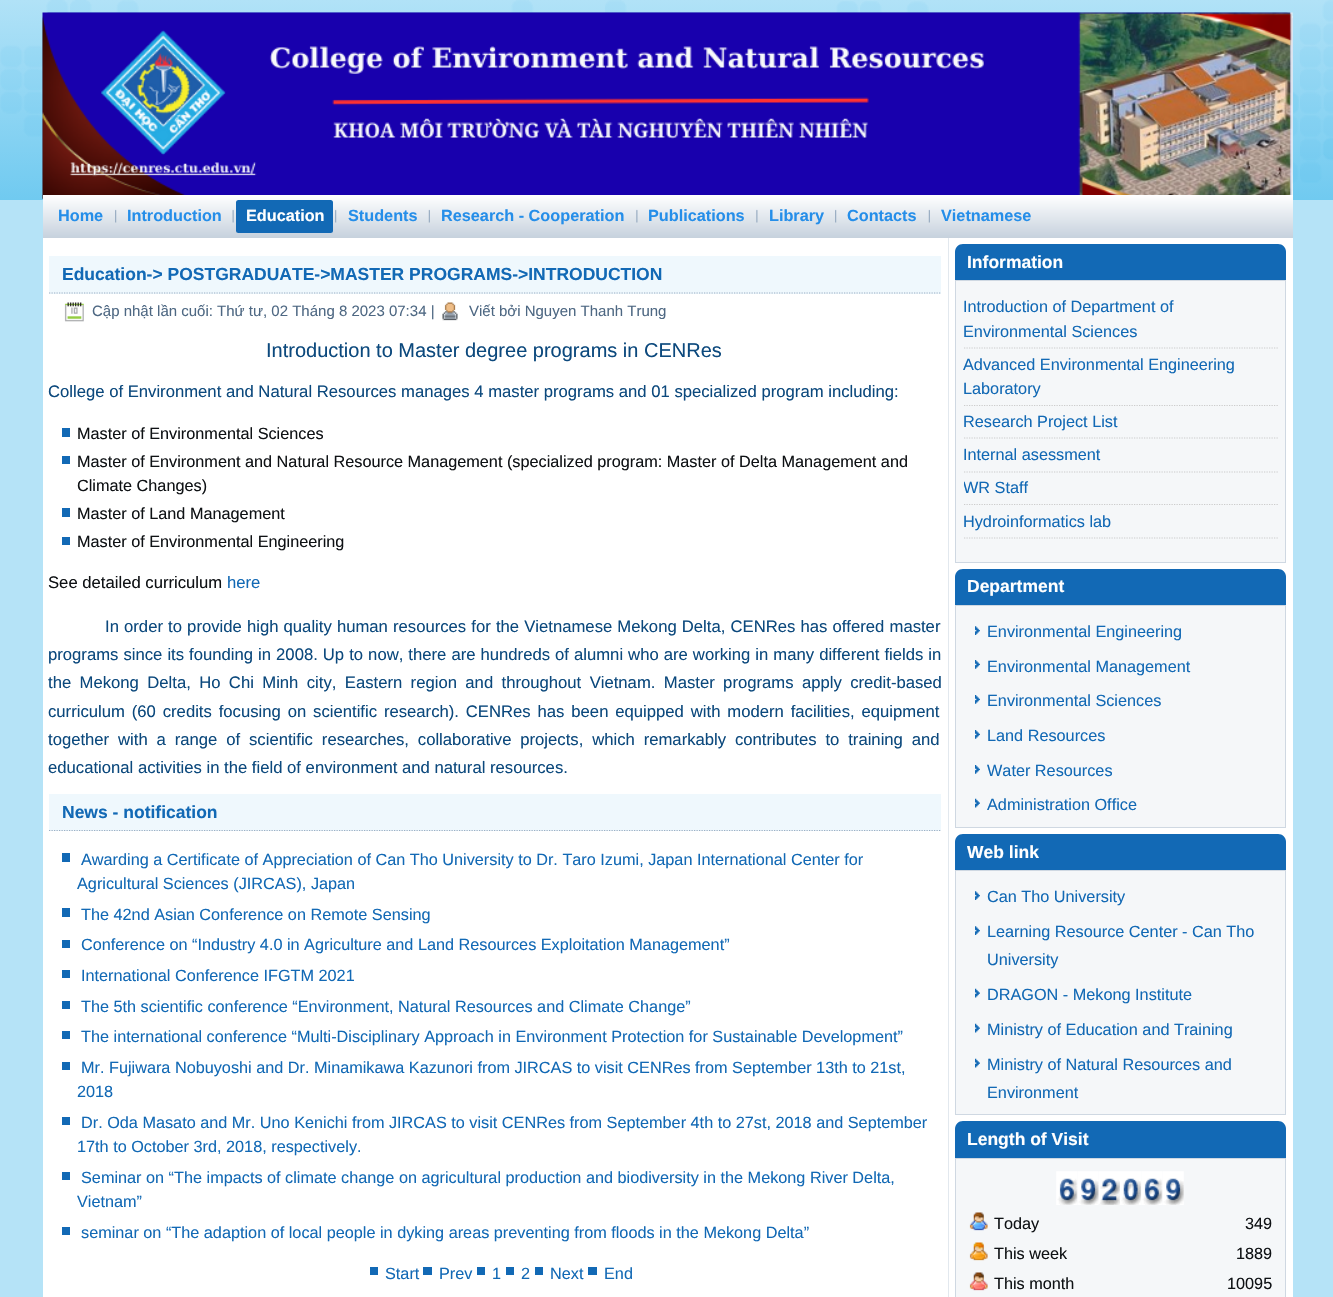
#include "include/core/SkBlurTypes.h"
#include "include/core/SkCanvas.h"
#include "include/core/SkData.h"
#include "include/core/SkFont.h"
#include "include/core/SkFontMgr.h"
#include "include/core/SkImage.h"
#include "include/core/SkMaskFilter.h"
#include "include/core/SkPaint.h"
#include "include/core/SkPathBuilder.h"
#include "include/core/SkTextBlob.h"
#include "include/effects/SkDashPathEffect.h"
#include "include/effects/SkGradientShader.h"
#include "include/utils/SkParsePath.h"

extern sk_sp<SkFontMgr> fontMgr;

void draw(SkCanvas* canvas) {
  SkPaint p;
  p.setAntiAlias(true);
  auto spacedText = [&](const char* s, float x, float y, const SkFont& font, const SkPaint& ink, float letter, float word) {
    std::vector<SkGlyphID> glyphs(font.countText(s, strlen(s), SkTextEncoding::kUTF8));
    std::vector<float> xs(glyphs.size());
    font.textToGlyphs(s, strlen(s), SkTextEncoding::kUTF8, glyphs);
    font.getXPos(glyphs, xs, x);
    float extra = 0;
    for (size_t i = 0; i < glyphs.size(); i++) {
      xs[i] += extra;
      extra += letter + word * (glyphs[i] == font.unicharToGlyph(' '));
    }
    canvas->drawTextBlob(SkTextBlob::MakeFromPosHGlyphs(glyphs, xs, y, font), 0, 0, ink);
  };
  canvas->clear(SkColorSetRGB(181, 227, 247));
  canvas->drawImageRect(SkImages::DeferredFromEncodedData(SkData::MakeFromFileName("images/1.png")), SkRect::MakeLTRB(0, 0, 1333, 200), SkSamplingOptions());
  p.setColor(SK_ColorWHITE);
  canvas->drawRoundRect(SkRect::MakeLTRB(43, 13, 1293, 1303), 6, 6, p);
  canvas->drawImageRect(SkImages::DeferredFromEncodedData(SkData::MakeFromFileName("images/2.png")), SkRect::MakeLTRB(42, 12, 1293, 196), SkSamplingOptions());
  canvas->drawImageRect(SkImages::DeferredFromEncodedData(SkData::MakeFromFileName("images/3.png")), SkRect::MakeLTRB(42, 12, 1293, 199), SkSamplingOptions());
  {
    const SkColor colors[] = {SK_ColorWHITE, SkColorSetRGB(198, 209, 221)};
    const float stops[] = {0, 1};
    const SkPoint ends[] = {{668, 195}, {668, 238}};
    p.setShader(SkGradientShader::MakeLinear(ends, colors, stops, 2, SkTileMode::kClamp));
    p.setAlpha(255);
  }
  canvas->drawRect(SkRect::MakeLTRB(43, 195, 1293, 238), p);
  canvas->drawImageRect(SkImages::DeferredFromEncodedData(SkData::MakeFromFileName("images/4.png")), SkRect::MakeLTRB(115, 209, 117, 223), SkSamplingOptions());
  canvas->drawImageRect(SkImages::DeferredFromEncodedData(SkData::MakeFromFileName("images/5.png")), SkRect::MakeLTRB(232, 209, 234, 223), SkSamplingOptions());
  p.setShader(nullptr);
  p.setColor(SkColorSetRGB(18, 105, 181));
  canvas->drawRoundRect(SkRect::MakeLTRB(236, 200, 333, 233), 2.5f, 2.5f, p);
  canvas->drawImageRect(SkImages::DeferredFromEncodedData(SkData::MakeFromFileName("images/4.png")), SkRect::MakeLTRB(335, 209, 337, 223), SkSamplingOptions());
  canvas->drawImageRect(SkImages::DeferredFromEncodedData(SkData::MakeFromFileName("images/6.png")), SkRect::MakeLTRB(428, 209, 430, 223), SkSamplingOptions());
  canvas->drawImageRect(SkImages::DeferredFromEncodedData(SkData::MakeFromFileName("images/7.png")), SkRect::MakeLTRB(636, 209, 638, 223), SkSamplingOptions());
  canvas->drawImageRect(SkImages::DeferredFromEncodedData(SkData::MakeFromFileName("images/7.png")), SkRect::MakeLTRB(756, 209, 758, 223), SkSamplingOptions());
  canvas->drawImageRect(SkImages::DeferredFromEncodedData(SkData::MakeFromFileName("images/4.png")), SkRect::MakeLTRB(835, 209, 837, 223), SkSamplingOptions());
  canvas->drawImageRect(SkImages::DeferredFromEncodedData(SkData::MakeFromFileName("images/6.png")), SkRect::MakeLTRB(928, 209, 930, 223), SkSamplingOptions());
  p.setColor(SkColorSetRGB(239, 248, 253));
  canvas->drawRect(SkRect::MakeLTRB(49, 256, 941, 294), p);
  p.setStyle(SkPaint::kStroke_Style);
  p.setStrokeWidth(1.2f);
  p.setColor(SkColorSetRGB(156, 175, 196));
  p.setPathEffect(SkDashPathEffect::Make({{1.25f, 1.25f}}, 0));
  canvas->drawPath(SkPathBuilder().moveTo(49, 293).lineTo(941, 293).detach(), p);
  p.setPathEffect(nullptr);
  canvas->drawImageRect(SkImages::DeferredFromEncodedData(SkData::MakeFromFileName("images/8.png")), SkRect::MakeLTRB(64, 302, 84, 322), SkSamplingOptions());
  canvas->drawImageRect(SkImages::DeferredFromEncodedData(SkData::MakeFromFileName("images/9.png")), SkRect::MakeLTRB(442, 302, 458, 321), SkSamplingOptions());
  p.setStyle(SkPaint::kFill_Style);
  p.setColor(SkColorSetRGB(18, 105, 181));
  canvas->drawRect(SkRect::MakeLTRB(62, 428, 70, 437), p);
  canvas->drawRect(SkRect::MakeLTRB(62, 456, 70, 464), p);
  canvas->drawRect(SkRect::MakeLTRB(62, 508, 70, 517), p);
  canvas->drawRect(SkRect::MakeLTRB(62, 537, 70, 545), p);
  p.setColor(SkColorSetRGB(239, 248, 253));
  canvas->drawRect(SkRect::MakeLTRB(49, 794, 941, 831), p);
  p.setStyle(SkPaint::kStroke_Style);
  p.setColor(SkColorSetRGB(156, 175, 196));
  p.setPathEffect(SkDashPathEffect::Make({{1.25f, 1.25f}}, 0));
  canvas->drawPath(SkPathBuilder().moveTo(49, 830.5f).lineTo(941, 830.5f).detach(), p);
  p.setPathEffect(nullptr);
  p.setStyle(SkPaint::kFill_Style);
  p.setColor(SkColorSetRGB(18, 105, 181));
  canvas->drawRect(SkRect::MakeLTRB(62, 853, 70, 862), p);
  canvas->drawRect(SkRect::MakeLTRB(62, 908, 70, 917), p);
  canvas->drawRect(SkRect::MakeLTRB(62, 940, 70, 948), p);
  canvas->drawRect(SkRect::MakeLTRB(62, 970, 70, 978), p);
  canvas->drawRect(SkRect::MakeLTRB(62, 1001, 70, 1009), p);
  canvas->drawRect(SkRect::MakeLTRB(62, 1031, 70, 1039), p);
  canvas->drawRect(SkRect::MakeLTRB(62, 1062, 70, 1070), p);
  canvas->drawRect(SkRect::MakeLTRB(62, 1117, 70, 1125), p);
  canvas->drawRect(SkRect::MakeLTRB(62, 1172, 70, 1180), p);
  canvas->drawRect(SkRect::MakeLTRB(62, 1227, 70, 1235), p);
  canvas->drawRect(SkRect::MakeLTRB(370, 1267, 378, 1275), p);
  canvas->drawRect(SkRect::MakeLTRB(423, 1267, 432, 1275), p);
  canvas->drawRect(SkRect::MakeLTRB(477, 1267, 485, 1275), p);
  canvas->drawRect(SkRect::MakeLTRB(506, 1267, 514, 1275), p);
  canvas->drawRect(SkRect::MakeLTRB(535, 1267, 543, 1275), p);
  canvas->drawRect(SkRect::MakeLTRB(588, 1267, 597, 1275), p);
  p.setColor(SkColorSetRGB(226, 232, 238));
  canvas->drawRect(SkRect::MakeLTRB(948, 238, 949, 1297), p);
  p.setColor(SkColorSetRGB(18, 105, 181));
  canvas->drawPath(SkPathBuilder().moveTo(963, 244).lineTo(1278, 244).cubicTo(1282.5f, 244, 1286, 247.5f, 1286, 252).lineTo(1286, 280).lineTo(955, 280).lineTo(955, 252).cubicTo(955, 247.5f, 958.5f, 244, 963, 244).close().detach(), p);
  p.setColor(SkColorSetRGB(245, 247, 249));
  canvas->drawRect(SkRect::MakeLTRB(955.5f, 280.5f, 1285.5f, 562.5f), p);
  p.setStyle(SkPaint::kStroke_Style);
  p.setStrokeWidth(1);
  p.setColor(SkColorSetRGB(207, 216, 226));
  canvas->drawRect(SkRect::MakeLTRB(955.5f, 280.5f, 1285.5f, 562.5f), p);
  p.setStrokeWidth(1.2f);
  p.setColor(SkColorSetRGB(204, 204, 204));
  p.setPathEffect(SkDashPathEffect::Make({{1.25f, 1.25f}}, 0));
  canvas->drawPath(SkPathBuilder().moveTo(964, 348).lineTo(1279, 348).detach(), p);
  p.setPathEffect(nullptr);
  p.setPathEffect(SkDashPathEffect::Make({{1.25f, 1.25f}}, 0));
  canvas->drawPath(SkPathBuilder().moveTo(964, 405.5f).lineTo(1279, 405.5f).detach(), p);
  p.setPathEffect(nullptr);
  p.setPathEffect(SkDashPathEffect::Make({{1.25f, 1.25f}}, 0));
  canvas->drawPath(SkPathBuilder().moveTo(964, 438).lineTo(1279, 438).detach(), p);
  p.setPathEffect(nullptr);
  p.setPathEffect(SkDashPathEffect::Make({{1.25f, 1.25f}}, 0));
  canvas->drawPath(SkPathBuilder().moveTo(964, 472).lineTo(1279, 472).detach(), p);
  p.setPathEffect(nullptr);
  p.setPathEffect(SkDashPathEffect::Make({{1.25f, 1.25f}}, 0));
  canvas->drawPath(SkPathBuilder().moveTo(964, 504.5f).lineTo(1279, 504.5f).detach(), p);
  p.setPathEffect(nullptr);
  p.setPathEffect(SkDashPathEffect::Make({{1.25f, 1.25f}}, 0));
  canvas->drawPath(SkPathBuilder().moveTo(964, 538).lineTo(1279, 538).detach(), p);
  p.setPathEffect(nullptr);
  p.setStyle(SkPaint::kFill_Style);
  p.setColor(SkColorSetRGB(18, 105, 181));
  canvas->drawPath(SkPathBuilder().moveTo(963, 569).lineTo(1278, 569).cubicTo(1282.5f, 569, 1286, 572.5f, 1286, 577).lineTo(1286, 605).lineTo(955, 605).lineTo(955, 577).cubicTo(955, 572.5f, 958.5f, 569, 963, 569).close().detach(), p);
  p.setColor(SkColorSetRGB(245, 247, 249));
  canvas->drawRect(SkRect::MakeLTRB(955.5f, 605.5f, 1285.5f, 827.5f), p);
  p.setStyle(SkPaint::kStroke_Style);
  p.setStrokeWidth(1);
  p.setColor(SkColorSetRGB(207, 216, 226));
  canvas->drawRect(SkRect::MakeLTRB(955.5f, 605.5f, 1285.5f, 827.5f), p);
  canvas->drawImageRect(SkImages::DeferredFromEncodedData(SkData::MakeFromFileName("images/10.png")), SkRect::MakeLTRB(975, 626, 980, 635), SkSamplingOptions());
  canvas->drawImageRect(SkImages::DeferredFromEncodedData(SkData::MakeFromFileName("images/11.png")), SkRect::MakeLTRB(975, 660, 980, 669), SkSamplingOptions());
  canvas->drawImageRect(SkImages::DeferredFromEncodedData(SkData::MakeFromFileName("images/11.png")), SkRect::MakeLTRB(975, 695, 980, 704), SkSamplingOptions());
  canvas->drawImageRect(SkImages::DeferredFromEncodedData(SkData::MakeFromFileName("images/11.png")), SkRect::MakeLTRB(975, 730, 980, 739), SkSamplingOptions());
  canvas->drawImageRect(SkImages::DeferredFromEncodedData(SkData::MakeFromFileName("images/11.png")), SkRect::MakeLTRB(975, 765, 980, 774), SkSamplingOptions());
  canvas->drawImageRect(SkImages::DeferredFromEncodedData(SkData::MakeFromFileName("images/12.png")), SkRect::MakeLTRB(975, 798, 980, 808), SkSamplingOptions());
  p.setStyle(SkPaint::kFill_Style);
  p.setColor(SkColorSetRGB(18, 105, 181));
  canvas->drawPath(SkPathBuilder().moveTo(963, 834).lineTo(1278, 834).cubicTo(1282.5f, 834, 1286, 837.5f, 1286, 842).lineTo(1286, 870).lineTo(955, 870).lineTo(955, 842).cubicTo(955, 837.5f, 958.5f, 834, 963, 834).close().detach(), p);
  p.setColor(SkColorSetRGB(245, 247, 249));
  canvas->drawRect(SkRect::MakeLTRB(955.5f, 870.5f, 1285.5f, 1114.5f), p);
  p.setStyle(SkPaint::kStroke_Style);
  p.setColor(SkColorSetRGB(207, 216, 226));
  canvas->drawRect(SkRect::MakeLTRB(955.5f, 870.5f, 1285.5f, 1114.5f), p);
  canvas->drawImageRect(SkImages::DeferredFromEncodedData(SkData::MakeFromFileName("images/10.png")), SkRect::MakeLTRB(975, 891, 980, 900), SkSamplingOptions());
  canvas->drawImageRect(SkImages::DeferredFromEncodedData(SkData::MakeFromFileName("images/10.png")), SkRect::MakeLTRB(975, 926, 980, 935), SkSamplingOptions());
  canvas->drawImageRect(SkImages::DeferredFromEncodedData(SkData::MakeFromFileName("images/12.png")), SkRect::MakeLTRB(975, 988, 980, 998), SkSamplingOptions());
  canvas->drawImageRect(SkImages::DeferredFromEncodedData(SkData::MakeFromFileName("images/13.png")), SkRect::MakeLTRB(975, 1023, 980, 1033), SkSamplingOptions());
  canvas->drawImageRect(SkImages::DeferredFromEncodedData(SkData::MakeFromFileName("images/12.png")), SkRect::MakeLTRB(975, 1058, 980, 1068), SkSamplingOptions());
  p.setStyle(SkPaint::kFill_Style);
  p.setColor(SkColorSetRGB(18, 105, 181));
  canvas->drawPath(SkPathBuilder().moveTo(963, 1121).lineTo(1278, 1121).cubicTo(1282.5f, 1121, 1286, 1124.5f, 1286, 1129).lineTo(1286, 1158).lineTo(955, 1158).lineTo(955, 1129).cubicTo(955, 1124.5f, 958.5f, 1121, 963, 1121).close().detach(), p);
  p.setColor(SkColorSetRGB(245, 247, 249));
  canvas->drawRect(SkRect::MakeLTRB(955.5f, 1158.5f, 1285.5f, 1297.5f), p);
  p.setStyle(SkPaint::kStroke_Style);
  p.setColor(SkColorSetRGB(207, 216, 226));
  canvas->drawRect(SkRect::MakeLTRB(955.5f, 1158.5f, 1285.5f, 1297.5f), p);
  canvas->drawImageRect(SkImages::DeferredFromEncodedData(SkData::MakeFromFileName("images/14.png")), SkRect::MakeLTRB(1056, 1171, 1078, 1205), SkSamplingOptions());
  canvas->drawImageRect(SkImages::DeferredFromEncodedData(SkData::MakeFromFileName("images/15.png")), SkRect::MakeLTRB(1077, 1171, 1099, 1205), SkSamplingOptions());
  canvas->drawImageRect(SkImages::DeferredFromEncodedData(SkData::MakeFromFileName("images/16.png")), SkRect::MakeLTRB(1098, 1171, 1120, 1205), SkSamplingOptions());
  canvas->drawImageRect(SkImages::DeferredFromEncodedData(SkData::MakeFromFileName("images/17.png")), SkRect::MakeLTRB(1120, 1171, 1142, 1205), SkSamplingOptions());
  canvas->drawImageRect(SkImages::DeferredFromEncodedData(SkData::MakeFromFileName("images/18.png")), SkRect::MakeLTRB(1141, 1171, 1163, 1205), SkSamplingOptions());
  canvas->drawImageRect(SkImages::DeferredFromEncodedData(SkData::MakeFromFileName("images/15.png")), SkRect::MakeLTRB(1162, 1171, 1184, 1205), SkSamplingOptions());
  canvas->drawImageRect(SkImages::DeferredFromEncodedData(SkData::MakeFromFileName("images/19.png")), SkRect::MakeLTRB(969, 1212, 988, 1231), SkSamplingOptions());
  canvas->drawImageRect(SkImages::DeferredFromEncodedData(SkData::MakeFromFileName("images/20.png")), SkRect::MakeLTRB(969, 1242, 988, 1261), SkSamplingOptions());
  canvas->drawImageRect(SkImages::DeferredFromEncodedData(SkData::MakeFromFileName("images/21.png")), SkRect::MakeLTRB(969, 1272, 988, 1291), SkSamplingOptions());
  SkFont font1(fontMgr->matchFamilyStyle("Liberation Sans", SkFontStyle::Bold()), 16.25f);
  font1.setSubpixel(true);
  p.setStyle(SkPaint::kFill_Style);
  p.setColor(SkColorSetRGB(37, 142, 233));
  canvas->drawString("Home", 58, 221, font1, p);
  canvas->drawString("Introduction", 127, 221, font1, p);
  p.setColor(SK_ColorWHITE);
  canvas->drawString("Education", 246, 221, font1, p);
  p.setColor(SkColorSetRGB(37, 142, 233));
  canvas->drawString("Students", 348, 221, font1, p);
  canvas->drawString("Research - Cooperation", 441, 221, font1, p);
  canvas->drawString("Publications", 648, 221, font1, p);
  canvas->drawString("Library", 769, 221, font1, p);
  canvas->drawString("Contacts", 847, 221, font1, p);
  canvas->drawString("Vietnamese", 941, 221, font1, p);
  SkFont font2(fontMgr->matchFamilyStyle("Liberation Sans", SkFontStyle::Bold()), 17.5f);
  font2.setSubpixel(true);
  p.setColor(SkColorSetRGB(18, 105, 181));
  canvas->drawString("Education-> POSTGRADUATE->MASTER PROGRAMS->INTRODUCTION", 62, 280, font2, p);
  SkFont font3(fontMgr->matchFamilyStyle("Liberation Sans", SkFontStyle::Normal()), 15);
  font3.setSubpixel(true);
  p.setColor(SkColorSetRGB(78, 104, 131));
  canvas->drawString("Cập nhật lần cuối: Thứ tư, 02 Tháng 8 2023 07:34 |", 92, 316, font3, p);
  canvas->drawString("Viết bởi Nguyen Thanh Trung", 469, 316, font3, p);
  SkFont font4(fontMgr->matchFamilyStyle("Liberation Sans", SkFontStyle::Normal()), 20);
  font4.setSubpixel(true);
  p.setColor(SkColorSetRGB(12, 73, 125));
  canvas->drawString("Introduction to Master degree programs in CENRes", 266, 357, font4, p);
  SkFont font5(fontMgr->matchFamilyStyle("Liberation Sans", SkFontStyle::Normal()), 16.67f);
  font5.setSubpixel(true);
  canvas->drawString("College of Environment and Natural Resources manages 4 master programs and 01 specialized program including:", 48, 397, font5, p);
  SkFont font6(fontMgr->matchFamilyStyle("Liberation Sans", SkFontStyle::Normal()), 16.25f);
  font6.setSubpixel(true);
  p.setColor(SkColorSetRGB(15, 18, 21));
  canvas->drawString("Master of Environmental Sciences", 77, 439, font6, p);
  canvas->drawString("Master of Environment and Natural Resource Management (specialized program: Master of Delta Management and", 77, 467, font6, p);
  canvas->drawString("Climate Changes)", 77, 491, font6, p);
  canvas->drawString("Master of Land Management", 77, 519, font6, p);
  canvas->drawString("Master of Environmental Engineering", 77, 547, font6, p);
  canvas->drawString("See detailed curriculum", 48, 588, font5, p);
  p.setColor(SkColorSetRGB(18, 105, 181));
  canvas->drawString("here", 227, 588, font5, p);
  p.setColor(SkColorSetRGB(12, 73, 125));
  spacedText("In order to provide high quality human resources for the Vietnamese Mekong Delta, CENRes has offered master", 105, 632, font5, p, 0, 0.5f);
  spacedText("programs since its founding in 2008. Up to now, there are hundreds of alumni who are working in many different fields in", 48, 660, font5, p, 0, 0.4f);
  spacedText("the Mekong Delta, Ho Chi Minh city, Eastern region and throughout Vietnam. Master programs apply credit-based", 48, 688, font5, p, 0, 3.75f);
  spacedText("curriculum (60 credits focusing on scientific research). CENRes has been equipped with modern facilities, equipment", 48, 717, font5, p, 0, 2.25f);
  spacedText("together with a range of scientific researches, collaborative projects, which remarkably contributes to training and", 48, 745, font5, p, 0, 4.25f);
  canvas->drawString("educational activities in the field of environment and natural resources.", 48, 773, font5, p);
  p.setColor(SkColorSetRGB(18, 105, 181));
  canvas->drawString("News - notification", 62, 818, font2, p);
  canvas->drawString("Awarding a Certificate of Appreciation of Can Tho University to Dr. Taro Izumi, Japan International Center for", 81, 865, font6, p);
  canvas->drawString("Agricultural Sciences (JIRCAS), Japan", 77, 889, font6, p);
  canvas->drawString("The 42nd Asian Conference on Remote Sensing", 81, 920, font6, p);
  canvas->drawString("Conference on “Industry 4.0 in Agriculture and Land Resources Exploitation Management”", 81, 950, font6, p);
  canvas->drawString("International Conference IFGTM 2021", 81, 981, font6, p);
  canvas->drawString("The 5th scientific conference “Environment, Natural Resources and Climate Change”", 81, 1012, font6, p);
  canvas->drawString("The international conference “Multi-Disciplinary Approach in Environment Protection for Sustainable Development”", 81, 1042, font6, p);
  canvas->drawString("Mr. Fujiwara Nobuyoshi and Dr. Minamikawa Kazunori from JIRCAS to visit CENRes from September 13th to 21st,", 81, 1073, font6, p);
  canvas->drawString("2018", 77, 1097, font6, p);
  canvas->drawString("Dr. Oda Masato and Mr. Uno Kenichi from JIRCAS to visit CENRes from September 4th to 27st, 2018 and September", 81, 1128, font6, p);
  canvas->drawString("17th to October 3rd, 2018, respectively.", 77, 1152, font6, p);
  canvas->drawString("Seminar on “The impacts of climate change on agricultural production and biodiversity in the Mekong River Delta,", 81, 1183, font6, p);
  canvas->drawString("Vietnam”", 77, 1207, font6, p);
  canvas->drawString("seminar on “The adaption of local people in dyking areas preventing from floods in the Mekong Delta”", 81, 1238, font6, p);
  canvas->drawString("Start", 385, 1279, font6, p);
  canvas->drawString("Prev", 439, 1279, font6, p);
  canvas->drawString("1", 492, 1279, font6, p);
  canvas->drawString("2", 521, 1279, font6, p);
  canvas->drawString("Next", 550, 1279, font6, p);
  canvas->drawString("End", 604, 1279, font6, p);
  p.setColor(SK_ColorWHITE);
  canvas->drawString("Information", 967, 268, font2, p);
  p.setColor(SkColorSetRGB(18, 105, 181));
  canvas->drawString("Introduction of Department of", 963, 312, font6, p);
  canvas->drawString("Environmental Sciences", 963, 337, font6, p);
  canvas->drawString("Advanced Environmental Engineering", 963, 370, font6, p);
  canvas->drawString("Laboratory", 963, 394, font6, p);
  canvas->drawString("Research Project List", 963, 427, font6, p);
  canvas->drawString("Internal asessment", 963, 460, font6, p);
  canvas->save();
  canvas->clipRect(SkRect::MakeLTRB(964, 291, 1279, 545));
  canvas->drawString("WR Staff", 963, 493, font6, p);
  canvas->restore();
  canvas->drawString("Hydroinformatics lab", 963, 527, font6, p);
  p.setColor(SK_ColorWHITE);
  canvas->drawString("Department", 967, 592, font2, p);
  p.setColor(SkColorSetRGB(18, 105, 181));
  canvas->drawString("Environmental Engineering", 987, 637, font6, p);
  canvas->drawString("Environmental Management", 987, 672, font6, p);
  canvas->drawString("Environmental Sciences", 987, 706, font6, p);
  canvas->drawString("Land Resources", 987, 741, font6, p);
  canvas->drawString("Water Resources", 987, 776, font6, p);
  canvas->drawString("Administration Office", 987, 810, font6, p);
  p.setColor(SK_ColorWHITE);
  canvas->drawString("Web link", 967, 858, font2, p);
  p.setColor(SkColorSetRGB(18, 105, 181));
  canvas->drawString("Can Tho University", 987, 902, font6, p);
  canvas->drawString("Learning Resource Center - Can Tho", 987, 937, font6, p);
  canvas->drawString("University", 987, 965, font6, p);
  canvas->drawString("DRAGON - Mekong Institute", 987, 1000, font6, p);
  canvas->drawString("Ministry of Education and Training", 987, 1035, font6, p);
  canvas->drawString("Ministry of Natural Resources and", 987, 1070, font6, p);
  canvas->drawString("Environment", 987, 1098, font6, p);
  p.setColor(SK_ColorWHITE);
  canvas->drawString("Length of Visit", 967, 1145, font2, p);
  p.setColor(SkColorSetRGB(15, 18, 21));
  canvas->drawString("Today", 994, 1229, font6, p);
  canvas->drawString("This week", 994, 1259, font6, p);
  canvas->drawString("This month", 994, 1289, font6, p);
  canvas->drawString("349", 1245, 1229, font6, p);
  canvas->drawString("1889", 1236, 1259, font6, p);
  canvas->drawString("10095", 1227, 1289, font6, p);
}
